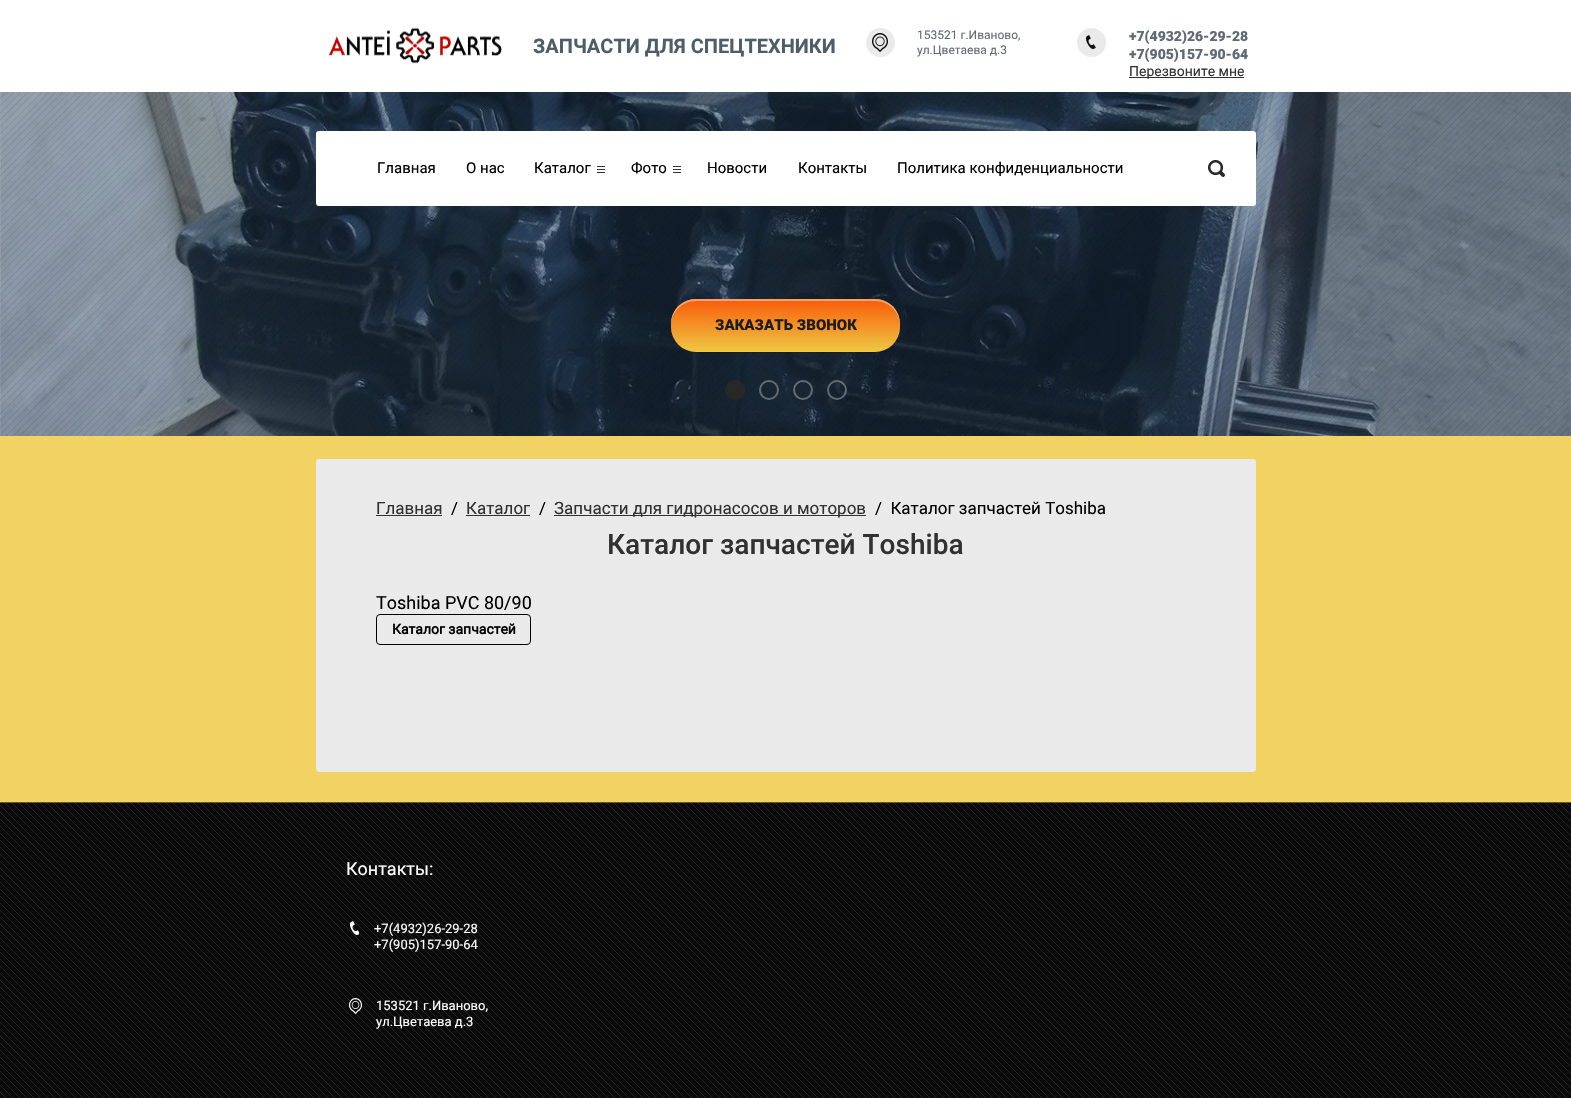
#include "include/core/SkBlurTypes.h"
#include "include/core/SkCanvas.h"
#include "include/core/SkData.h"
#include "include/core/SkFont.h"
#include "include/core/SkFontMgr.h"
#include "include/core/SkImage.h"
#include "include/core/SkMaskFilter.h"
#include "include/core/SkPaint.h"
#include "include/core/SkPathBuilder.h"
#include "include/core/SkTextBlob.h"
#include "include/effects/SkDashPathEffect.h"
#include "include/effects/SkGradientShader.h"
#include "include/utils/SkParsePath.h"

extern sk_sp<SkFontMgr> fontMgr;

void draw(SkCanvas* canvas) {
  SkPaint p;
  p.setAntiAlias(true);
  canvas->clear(SkColorSetRGB(241, 210, 99));
  p.setColor(SK_ColorWHITE);
  canvas->drawRect(SkRect::MakeLTRB(0, 0, 1571, 92), p);
  canvas->drawImageRect(SkImages::DeferredFromEncodedData(SkData::MakeFromFileName("images/1.png")), SkRect::MakeLTRB(328, 27, 502, 64), SkSamplingOptions());
  p.setColor(SkColorSetRGB(234, 234, 234));
  canvas->drawCircle(880.5f, 42.5f, 14.5f, p);
  canvas->drawImageRect(SkImages::DeferredFromEncodedData(SkData::MakeFromFileName("images/2.png")), SkRect::MakeLTRB(872, 33, 888, 52), SkSamplingOptions());
  canvas->drawCircle(1091.5f, 42.5f, 14.5f, p);
  canvas->drawImageRect(SkImages::DeferredFromEncodedData(SkData::MakeFromFileName("images/3.png")), SkRect::MakeLTRB(1086, 35, 1096, 49), SkSamplingOptions());
  p.setColor(SkColorSetRGB(49, 49, 49));
  canvas->drawRect(SkRect::MakeLTRB(1129, 77, 1244, 78), p);
  canvas->drawImageRect(SkImages::DeferredFromEncodedData(SkData::MakeFromFileName("images/4.png")), SkRect::MakeLTRB(0, 92, 1571, 436), SkSamplingOptions());
  canvas->drawImageRect(SkImages::DeferredFromEncodedData(SkData::MakeFromFileName("images/5.png")), SkRect::MakeLTRB(0, 92, 1571, 436), SkSamplingOptions());
  p.setColor(SkColorSetRGB(40, 40, 40));
  canvas->drawCircle(735, 390, 10, p);
  p.setStyle(SkPaint::kStroke_Style);
  p.setStrokeWidth(2);
  p.setColor(SkColorSetARGB(82, 255, 255, 255));
  canvas->drawCircle(769, 390, 9, p);
  canvas->drawCircle(803, 390, 9, p);
  canvas->drawCircle(837, 390, 9, p);
  p.setStyle(SkPaint::kFill_Style);
  p.setColor(SK_ColorWHITE);
  canvas->drawRoundRect(SkRect::MakeLTRB(316, 131, 1256, 206), 3, 3, p);
  canvas->drawImageRect(SkImages::DeferredFromEncodedData(SkData::MakeFromFileName("images/6.png")), SkRect::MakeLTRB(597, 166, 605, 173), SkSamplingOptions());
  canvas->drawImageRect(SkImages::DeferredFromEncodedData(SkData::MakeFromFileName("images/6.png")), SkRect::MakeLTRB(673, 166, 681, 173), SkSamplingOptions());
  canvas->drawImageRect(SkImages::DeferredFromEncodedData(SkData::MakeFromFileName("images/7.png")), SkRect::MakeLTRB(1208, 160, 1225, 177), SkSamplingOptions());
  p.setColor(SkColorSetARGB(38, 0, 0, 0));
  p.setMaskFilter(SkMaskFilter::MakeBlur(kNormal_SkBlurStyle, 0.5f));
  canvas->drawRoundRect(SkRect::MakeLTRB(671, 300, 900, 353), 25, 25, p);
  p.setMaskFilter(nullptr);
  p.setColor(SkColorSetRGB(238, 200, 67));
  canvas->drawRoundRect(SkRect::MakeLTRB(671, 299, 900, 352), 25, 25, p);
  {
    const SkColor colors[] = {SkColorSetARGB(0, 249, 78, 3), SkColorSetARGB(227, 249, 78, 3)};
    const float stops[] = {0, 1};
    const SkPoint ends[] = {{786, 352}, {786, 299}};
    p.setShader(SkGradientShader::MakeLinear(ends, colors, stops, 2, SkTileMode::kClamp));
    p.setAlpha(255);
  }
  canvas->drawRoundRect(SkRect::MakeLTRB(671, 299, 900, 352), 25, 25, p);
  p.setShader(nullptr);
  p.setColor(SkColorSetARGB(102, 255, 255, 255));
  canvas->drawPath(SkPathBuilder().moveTo(696, 301).lineTo(875, 301).cubicTo(889, 301, 900, 312, 900, 326).lineTo(900, 324).cubicTo(900, 310, 889, 299, 875, 299).lineTo(696, 299).cubicTo(682, 299, 671, 310, 671, 324).lineTo(671, 326).cubicTo(671, 312, 682, 301, 696, 301).close().detach(), p);
  p.setColor(SkColorSetRGB(234, 234, 234));
  canvas->drawRoundRect(SkRect::MakeLTRB(316, 459, 1256, 772), 3, 3, p);
  p.setColor(SkColorSetRGB(49, 49, 49));
  canvas->drawRect(SkRect::MakeLTRB(376, 515, 442, 516), p);
  canvas->drawRect(SkRect::MakeLTRB(466, 515, 530, 516), p);
  canvas->drawRect(SkRect::MakeLTRB(554, 515, 866, 516), p);
  p.setStyle(SkPaint::kStroke_Style);
  p.setStrokeWidth(1);
  p.setColor(SK_ColorBLACK);
  canvas->drawRoundRect(SkRect::MakeLTRB(376.5f, 614.5f, 530.5f, 644.5f), 3.5f, 3.5f, p);
  p.setStyle(SkPaint::kFill_Style);
  p.setColor(SkColorSetRGB(10, 10, 10));
  canvas->drawRect(SkRect::MakeLTRB(0, 802, 1571, 1098), p);
  canvas->drawImageRect(SkImages::DeferredFromEncodedData(SkData::MakeFromFileName("images/8.png")), SkRect::MakeLTRB(0, 802, 1571, 1098), SkSamplingOptions());
  p.setColor(SkColorSetARGB(97, 241, 209, 78));
  canvas->drawRect(SkRect::MakeLTRB(0, 802, 1571, 803), p);
  canvas->drawImageRect(SkImages::DeferredFromEncodedData(SkData::MakeFromFileName("images/9.png")), SkRect::MakeLTRB(350, 921, 359, 935), SkSamplingOptions());
  canvas->drawImageRect(SkImages::DeferredFromEncodedData(SkData::MakeFromFileName("images/10.png")), SkRect::MakeLTRB(349, 998, 362, 1014), SkSamplingOptions());
  SkFont font1(fontMgr->matchFamilyStyle("Roboto", SkFontStyle::Bold()), 20);
  font1.setSubpixel(true);
  p.setColor(SkColorSetRGB(77, 93, 106));
  canvas->drawString("ЗАПЧАСТИ ДЛЯ СПЕЦТЕХНИКИ", 533, 53, font1, p);
  SkFont font2(fontMgr->matchFamilyStyle("Roboto", SkFontStyle::Normal()), 12);
  font2.setSubpixel(true);
  p.setColor(SkColorSetRGB(96, 106, 118));
  canvas->drawString("153521 г.Иваново,", 917, 39, font2, p);
  canvas->drawString("ул.Цветаева д.3", 917, 54, font2, p);
  SkFont font3(fontMgr->matchFamilyStyle("Roboto", SkFontStyle(900, SkFontStyle::kNormal_Width, SkFontStyle::kUpright_Slant)), 14);
  font3.setSubpixel(true);
  canvas->drawString("+7(4932)26-29-28", 1129, 41, font3, p);
  canvas->drawString("+7(905)157-90-64", 1129, 59, font3, p);
  SkFont font4(fontMgr->matchFamilyStyle("Roboto", SkFontStyle::Normal()), 14);
  font4.setSubpixel(true);
  p.setColor(SkColorSetRGB(49, 49, 49));
  canvas->drawString("Перезвоните мне", 1129, 76, font4, p);
  SkFont font5(fontMgr->matchFamilyStyle("Roboto", SkFontStyle::Normal()), 15);
  font5.setSubpixel(true);
  p.setColor(SK_ColorBLACK);
  canvas->drawString("Главная", 377, 173, font5, p);
  canvas->drawString("О нас", 466, 173, font5, p);
  canvas->drawString("Каталог", 534, 173, font5, p);
  canvas->drawString("Фото", 631, 173, font5, p);
  canvas->drawString("Новости", 707, 173, font5, p);
  canvas->drawString("Контакты", 798, 173, font5, p);
  canvas->drawString("Политика конфиденциальности", 897, 173, font5, p);
  SkFont font6(fontMgr->matchFamilyStyle("Roboto", SkFontStyle(900, SkFontStyle::kNormal_Width, SkFontStyle::kUpright_Slant)), 15);
  font6.setSubpixel(true);
  p.setColor(SkColorSetRGB(31, 30, 30));
  canvas->drawString("ЗАКАЗАТЬ ЗВОНОК", 715, 330, font6, p);
  SkFont font7(fontMgr->matchFamilyStyle("Roboto", SkFontStyle::Normal()), 17);
  font7.setSubpixel(true);
  p.setColor(SkColorSetRGB(49, 49, 49));
  canvas->drawString("Главная", 376, 514, font7, p);
  p.setColor(SK_ColorBLACK);
  canvas->drawString("/", 451, 514, font7, p);
  p.setColor(SkColorSetRGB(49, 49, 49));
  canvas->drawString("Каталог", 466, 514, font7, p);
  p.setColor(SK_ColorBLACK);
  canvas->drawString("/", 539, 514, font7, p);
  p.setColor(SkColorSetRGB(49, 49, 49));
  canvas->drawString("Запчасти для гидронасосов и моторов", 554, 514, font7, p);
  p.setColor(SK_ColorBLACK);
  canvas->drawString("/  Каталог запчастей Toshiba", 875, 514, font7, p);
  SkFont font8(fontMgr->matchFamilyStyle("Roboto", SkFontStyle(500, SkFontStyle::kNormal_Width, SkFontStyle::kUpright_Slant)), 28);
  font8.setSubpixel(true);
  p.setColor(SkColorSetRGB(49, 49, 49));
  canvas->drawString("Каталог запчастей Toshiba", 607, 554, font8, p);
  SkFont font9(fontMgr->matchFamilyStyle("Roboto", SkFontStyle::Normal()), 18);
  font9.setSubpixel(true);
  p.setColor(SK_ColorBLACK);
  canvas->drawString("Toshiba PVC 80/90", 376, 609, font9, p);
  SkFont font10(fontMgr->matchFamilyStyle("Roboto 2", SkFontStyle::Bold()), 14);
  font10.setSubpixel(true);
  canvas->drawString("Каталог запчастей", 392, 634, font10, p);
  p.setColor(SK_ColorWHITE);
  canvas->drawString("Контакты:", 346, 875, font9, p);
  SkFont font11(fontMgr->matchFamilyStyle("Roboto", SkFontStyle::Normal()), 13);
  font11.setSubpixel(true);
  canvas->drawString("+7(4932)26-29-28", 374, 933, font11, p);
  canvas->drawString("+7(905)157-90-64", 374, 949, font11, p);
  canvas->drawString("153521 г.Иваново,", 376, 1010, font11, p);
  canvas->drawString("ул.Цветаева д.3", 376, 1026, font11, p);
}
